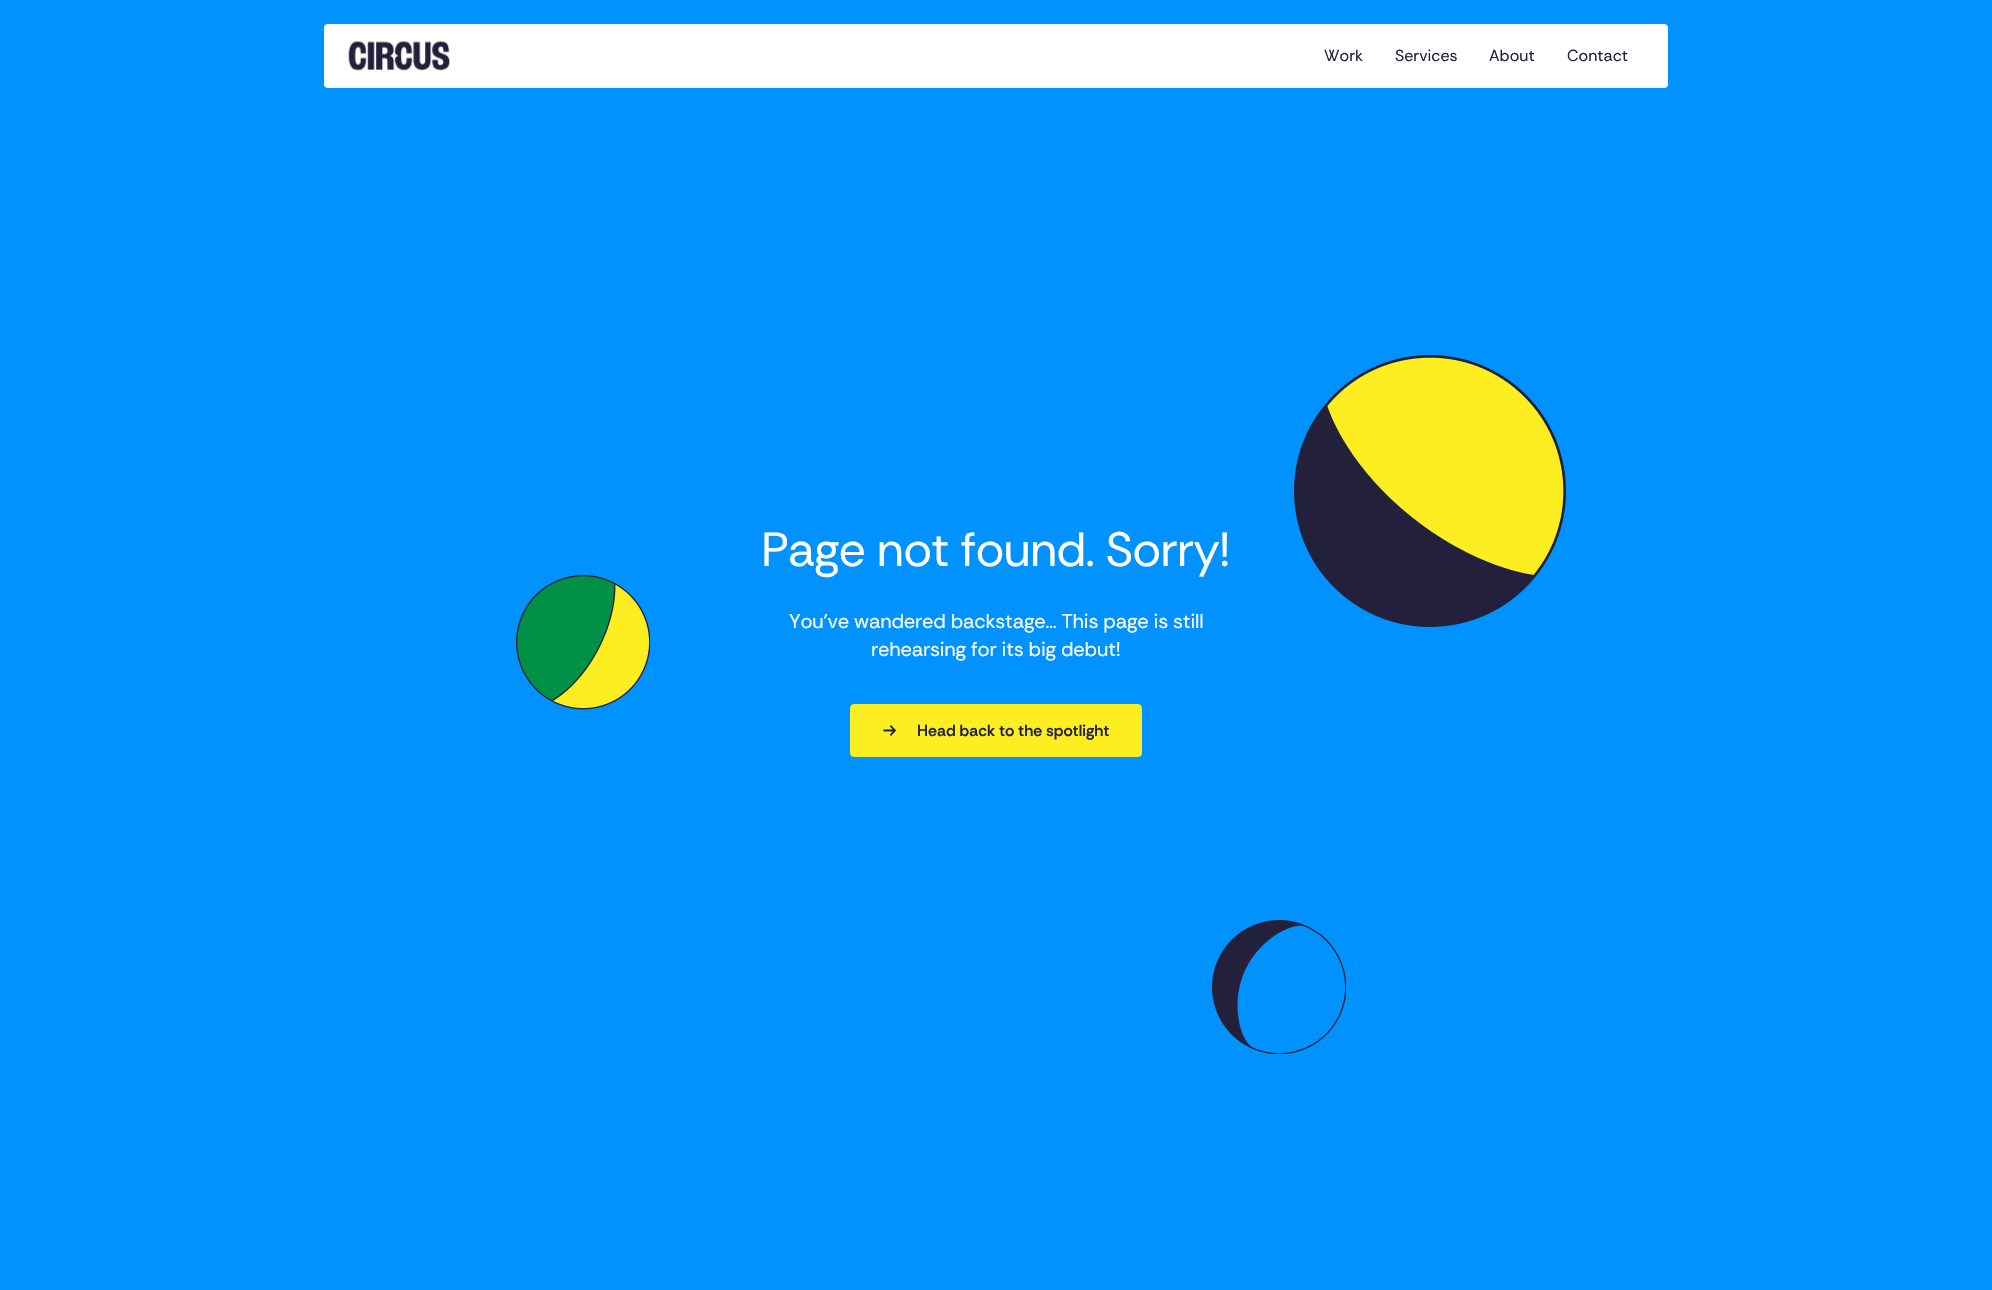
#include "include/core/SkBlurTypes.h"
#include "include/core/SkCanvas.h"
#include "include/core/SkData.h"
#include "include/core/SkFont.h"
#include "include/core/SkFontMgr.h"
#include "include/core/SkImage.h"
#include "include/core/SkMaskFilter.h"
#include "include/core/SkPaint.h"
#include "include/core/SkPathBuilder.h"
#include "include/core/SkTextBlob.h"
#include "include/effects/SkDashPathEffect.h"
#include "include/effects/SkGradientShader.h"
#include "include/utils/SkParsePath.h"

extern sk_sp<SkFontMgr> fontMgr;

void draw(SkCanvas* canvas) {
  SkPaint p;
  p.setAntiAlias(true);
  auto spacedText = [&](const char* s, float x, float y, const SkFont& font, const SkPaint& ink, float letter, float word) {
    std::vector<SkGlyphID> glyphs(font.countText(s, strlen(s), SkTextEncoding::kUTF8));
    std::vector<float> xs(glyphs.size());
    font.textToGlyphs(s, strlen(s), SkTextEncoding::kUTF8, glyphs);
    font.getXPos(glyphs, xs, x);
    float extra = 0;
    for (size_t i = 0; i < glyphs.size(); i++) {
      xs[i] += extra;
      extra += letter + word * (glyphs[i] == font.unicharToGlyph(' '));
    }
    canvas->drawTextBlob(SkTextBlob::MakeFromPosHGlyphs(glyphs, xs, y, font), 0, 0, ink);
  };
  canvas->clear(SkColorSetRGB(0, 146, 255));
  p.setColor(SK_ColorWHITE);
  canvas->drawRoundRect(SkRect::MakeLTRB(324, 24, 1668, 88), 4, 4, p);
  canvas->drawImageRect(SkImages::DeferredFromEncodedData(SkData::MakeFromFileName("images/1.png")), SkRect::MakeLTRB(348, 41, 450, 71), SkSamplingOptions());
  canvas->drawImageRect(SkImages::DeferredFromEncodedData(SkData::MakeFromFileName("images/2.png")), SkRect::MakeLTRB(516, 575, 650, 710), SkSamplingOptions());
  p.setColor(SkColorSetRGB(252, 238, 33));
  canvas->drawRoundRect(SkRect::MakeLTRB(850.5f, 704.5f, 1141.5f, 756.5f), 3.5f, 3.5f, p);
  p.setStyle(SkPaint::kStroke_Style);
  p.setStrokeWidth(1);
  canvas->drawRoundRect(SkRect::MakeLTRB(850.5f, 704.5f, 1141.5f, 756.5f), 3.5f, 3.5f, p);
  canvas->drawImageRect(SkImages::DeferredFromEncodedData(SkData::MakeFromFileName("images/3.png")), SkRect::MakeLTRB(883, 725, 896, 736), SkSamplingOptions());
  canvas->drawImageRect(SkImages::DeferredFromEncodedData(SkData::MakeFromFileName("images/4.png")), SkRect::MakeLTRB(1294, 355, 1566, 627), SkSamplingOptions());
  canvas->drawImageRect(SkImages::DeferredFromEncodedData(SkData::MakeFromFileName("images/5.png")), SkRect::MakeLTRB(1212, 920, 1346, 1054), SkSamplingOptions());
  SkFont font1(fontMgr->matchFamilyStyle("Rethink Sans", SkFontStyle(100, SkFontStyle::kNormal_Width, SkFontStyle::kUpright_Slant)), 16);
  font1.setSubpixel(true);
  p.setStyle(SkPaint::kFill_Style);
  p.setColor(SkColorSetRGB(35, 32, 59));
  canvas->drawString("Work", 1324, 61, font1, p);
  canvas->drawString("Services", 1395, 61, font1, p);
  canvas->drawString("About", 1489, 61, font1, p);
  canvas->drawString("Contact", 1567, 61, font1, p);
  SkFont font2(fontMgr->matchFamilyStyle("Rethink Sans", SkFontStyle(100, SkFontStyle::kNormal_Width, SkFontStyle::kUpright_Slant)), 48);
  font2.setSubpixel(true);
  p.setColor(SK_ColorWHITE);
  spacedText("Page not found. Sorry!", 761, 566, font2, p, -1, 0);
  SkFont font3(fontMgr->matchFamilyStyle("Rethink Sans", SkFontStyle(100, SkFontStyle::kNormal_Width, SkFontStyle::kUpright_Slant)), 20);
  font3.setSubpixel(true);
  spacedText("You’ve wandered backstage… This page is still", 789, 628, font3, p, -0.2f, 0);
  spacedText("rehearsing for its big debut!", 871, 656, font3, p, -0.2f, 0);
  SkFont font4(fontMgr->matchFamilyStyle("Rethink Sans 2", SkFontStyle(100, SkFontStyle::kNormal_Width, SkFontStyle::kUpright_Slant)), 16);
  font4.setSubpixel(true);
  p.setColor(SkColorSetRGB(35, 32, 59));
  canvas->drawString("Head back to the spotlight", 917, 736, font4, p);
}
